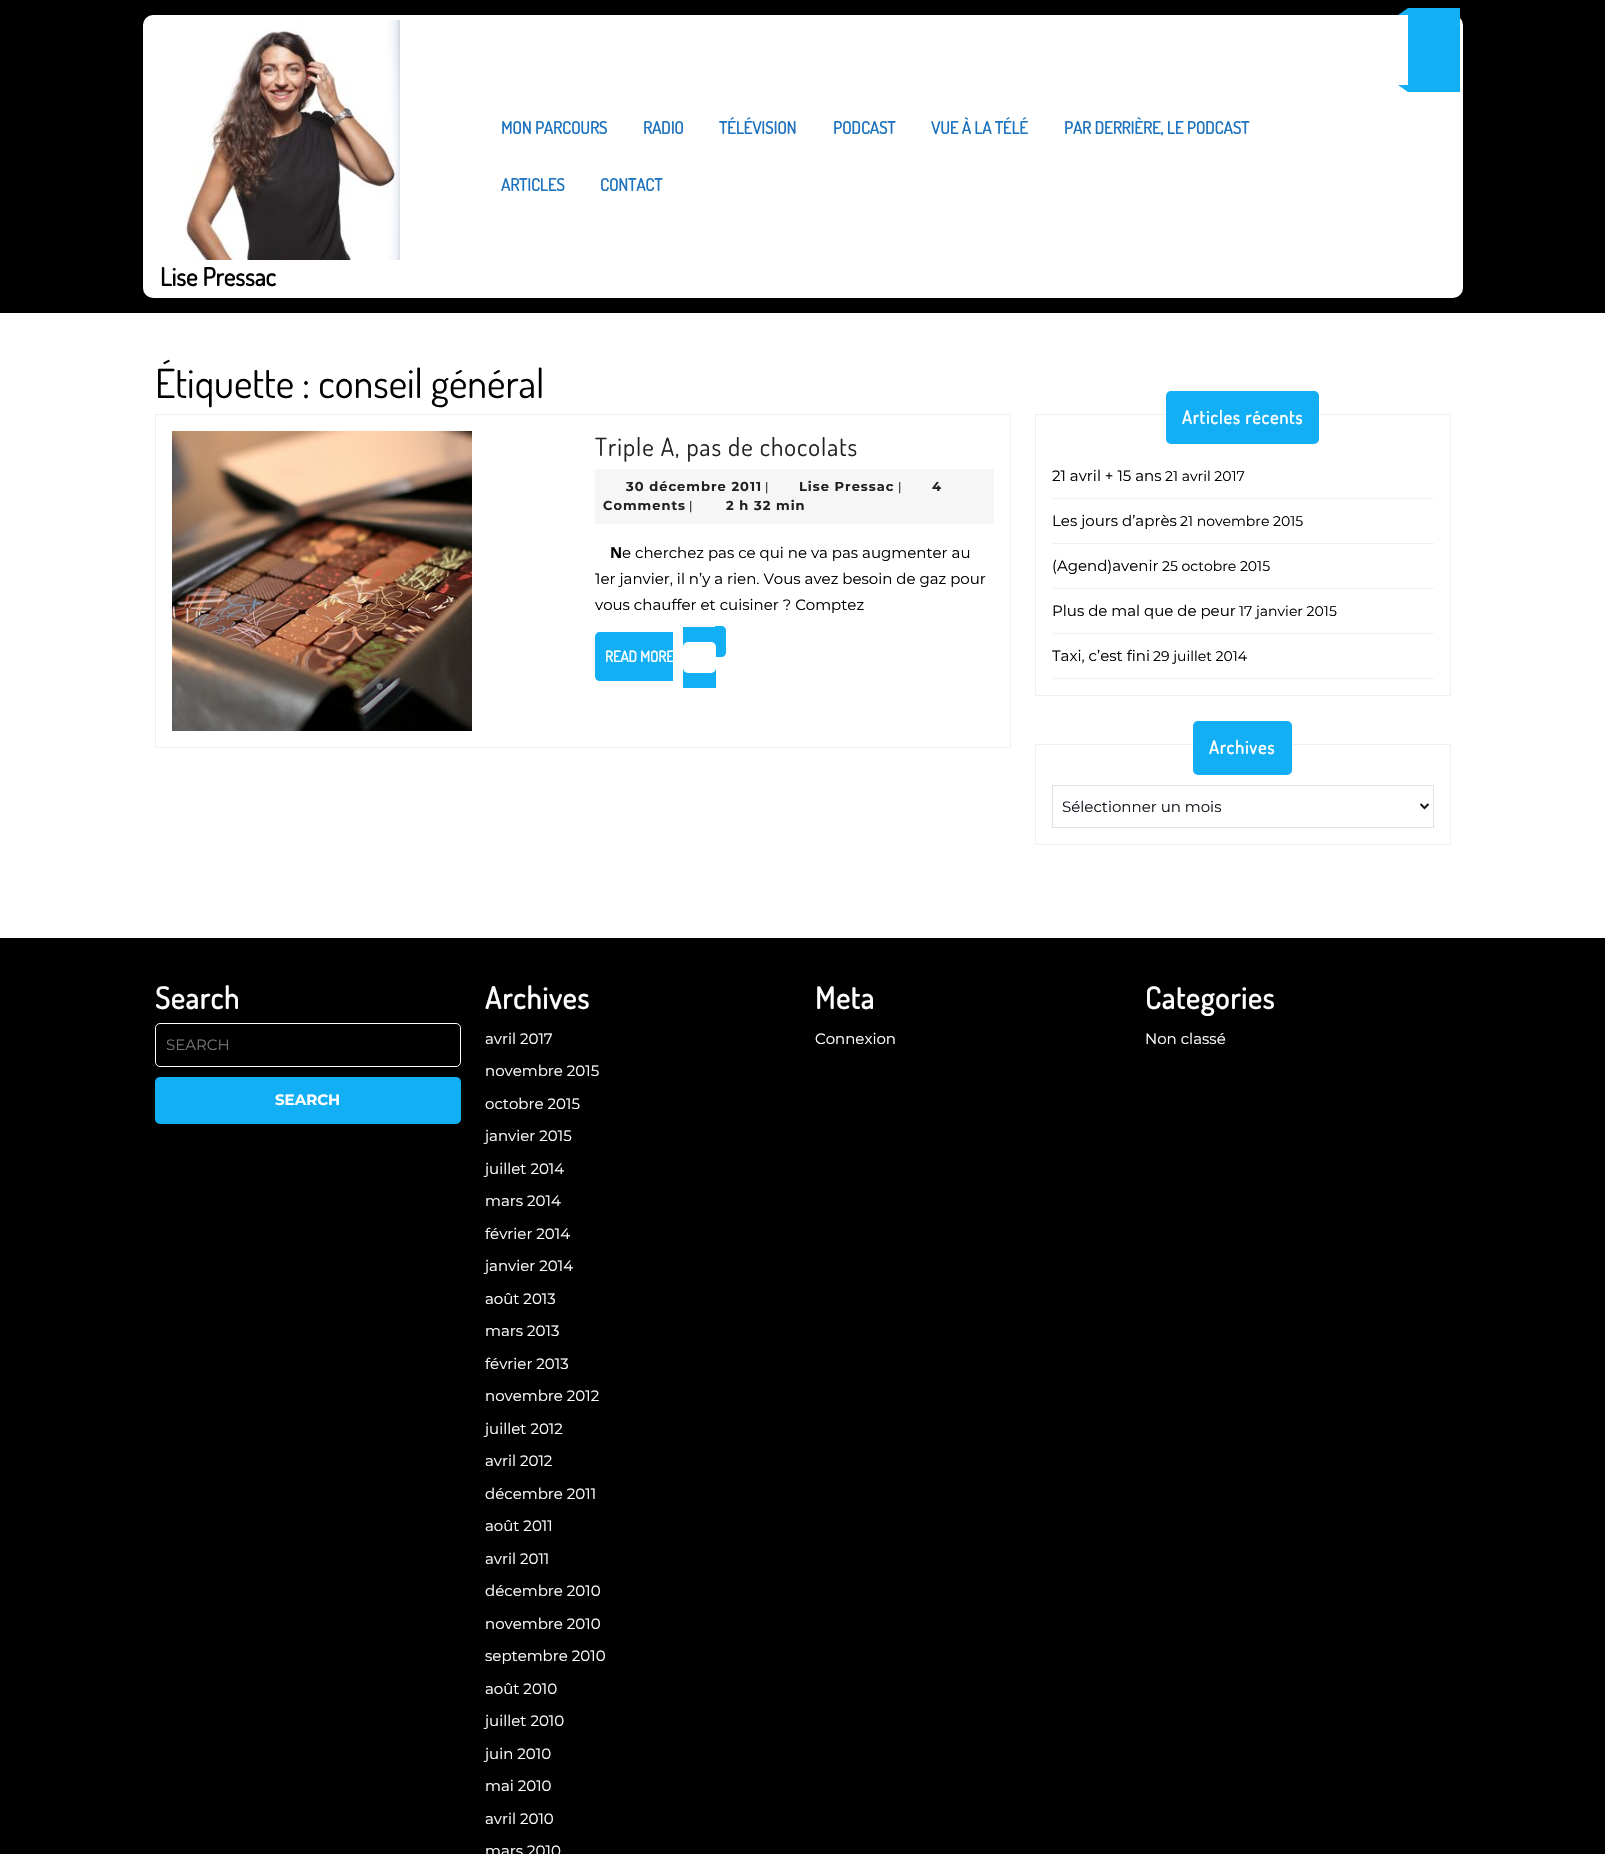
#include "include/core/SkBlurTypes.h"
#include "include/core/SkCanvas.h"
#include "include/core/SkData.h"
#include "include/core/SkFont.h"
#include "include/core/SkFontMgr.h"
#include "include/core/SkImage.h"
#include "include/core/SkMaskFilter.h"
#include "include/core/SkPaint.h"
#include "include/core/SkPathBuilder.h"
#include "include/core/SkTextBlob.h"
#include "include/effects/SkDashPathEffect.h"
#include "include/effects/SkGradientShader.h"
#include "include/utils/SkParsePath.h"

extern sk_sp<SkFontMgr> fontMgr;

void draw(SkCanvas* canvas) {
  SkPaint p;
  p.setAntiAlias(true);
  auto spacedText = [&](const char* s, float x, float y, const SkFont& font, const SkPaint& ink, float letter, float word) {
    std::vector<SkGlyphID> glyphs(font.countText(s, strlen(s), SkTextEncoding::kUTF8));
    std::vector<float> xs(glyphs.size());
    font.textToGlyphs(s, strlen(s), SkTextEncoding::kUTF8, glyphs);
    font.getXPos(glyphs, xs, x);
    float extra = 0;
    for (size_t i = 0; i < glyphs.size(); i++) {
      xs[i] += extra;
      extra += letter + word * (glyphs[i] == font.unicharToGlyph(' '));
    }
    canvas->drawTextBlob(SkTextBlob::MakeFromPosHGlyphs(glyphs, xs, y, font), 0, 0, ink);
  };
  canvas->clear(SK_ColorWHITE);
  p.setColor(SK_ColorBLACK);
  canvas->drawRect(SkRect::MakeLTRB(0, 0, 1605, 313), p);
  p.setColor(SK_ColorWHITE);
  canvas->drawRoundRect(SkRect::MakeLTRB(143, 15, 1463, 298), 10, 10, p);
  p.setColor(SkColorSetRGB(18, 175, 245));
  canvas->drawRect(SkRect::MakeLTRB(1408, 8, 1460, 92), p);
  canvas->drawPath(SkPathBuilder().moveTo(1408, 15).lineTo(1398, 15).lineTo(1408, 8).close().detach(), p);
  canvas->drawPath(SkPathBuilder().moveTo(1398, 85).lineTo(1408, 85).lineTo(1408, 92).close().detach(), p);
  canvas->drawImageRect(SkImages::DeferredFromEncodedData(SkData::MakeFromFileName("images/1.png")), SkRect::MakeLTRB(184, 20, 400, 260), SkSamplingOptions());
  p.setStyle(SkPaint::kStroke_Style);
  p.setStrokeWidth(1);
  p.setColor(SkColorSetRGB(240, 240, 240));
  canvas->drawRect(SkRect::MakeLTRB(155.5f, 414.5f, 1010.5f, 747.5f), p);
  canvas->drawImageRect(SkImages::DeferredFromEncodedData(SkData::MakeFromFileName("images/2.png")), SkRect::MakeLTRB(172, 431, 472, 731), SkSamplingOptions());
  p.setStyle(SkPaint::kFill_Style);
  p.setColor(SkColorSetRGB(246, 246, 246));
  canvas->drawRect(SkRect::MakeLTRB(595, 469, 994, 524), p);
  p.setColor(SkColorSetRGB(18, 175, 245));
  canvas->drawPath(SkPathBuilder().moveTo(600, 632).lineTo(673, 632).lineTo(673, 681).lineTo(600, 681).cubicTo(597, 681, 595, 679, 595, 676).lineTo(595, 637).cubicTo(595, 634, 597, 632, 600, 632).close().detach(), p);
  canvas->drawRect(SkRect::MakeLTRB(683, 627, 716, 688), p);
  canvas->drawPath(SkPathBuilder().moveTo(715, 626).lineTo(721, 626).cubicTo(724, 626, 726, 628, 726, 631).lineTo(726, 652).cubicTo(726, 655, 724, 657, 721, 657).lineTo(715, 657).close().detach(), p);
  p.setColor(SK_ColorWHITE);
  canvas->drawRoundRect(SkRect::MakeLTRB(683, 642, 716, 673), 5, 5, p);
  p.setStyle(SkPaint::kStroke_Style);
  p.setColor(SkColorSetRGB(240, 240, 240));
  canvas->drawRect(SkRect::MakeLTRB(1035.5f, 414.5f, 1450.5f, 695.5f), p);
  p.setStyle(SkPaint::kFill_Style);
  p.setColor(SkColorSetRGB(18, 175, 245));
  canvas->drawRoundRect(SkRect::MakeLTRB(1166, 391, 1319, 444), 5, 5, p);
  p.setColor(SkColorSetRGB(240, 240, 240));
  canvas->drawRect(SkRect::MakeLTRB(1052, 498, 1434, 499), p);
  canvas->drawRect(SkRect::MakeLTRB(1052, 543, 1434, 544), p);
  canvas->drawRect(SkRect::MakeLTRB(1052, 588, 1434, 589), p);
  canvas->drawRect(SkRect::MakeLTRB(1052, 633, 1434, 634), p);
  canvas->drawRect(SkRect::MakeLTRB(1052, 678, 1434, 679), p);
  p.setStyle(SkPaint::kStroke_Style);
  canvas->drawRect(SkRect::MakeLTRB(1035.5f, 744.5f, 1450.5f, 844.5f), p);
  p.setStyle(SkPaint::kFill_Style);
  p.setColor(SkColorSetRGB(18, 175, 245));
  canvas->drawRoundRect(SkRect::MakeLTRB(1193, 721, 1292, 775), 5, 5, p);
  p.setStyle(SkPaint::kStroke_Style);
  p.setColor(SkColorSetRGB(225, 225, 225));
  canvas->drawRect(SkRect::MakeLTRB(1052.5f, 785.5f, 1433.5f, 827.5f), p);
  p.setStrokeWidth(2);
  p.setColor(SkColorSetRGB(21, 24, 33));
  canvas->drawPath(SkPathBuilder().moveTo(1420.5f, 804).lineTo(1424.5f, 808).lineTo(1428.5f, 804).detach(), p);
  p.setStyle(SkPaint::kFill_Style);
  p.setColor(SK_ColorBLACK);
  canvas->drawRect(SkRect::MakeLTRB(0, 938, 1605, 1854), p);
  p.setStyle(SkPaint::kStroke_Style);
  p.setStrokeWidth(1);
  p.setColor(SK_ColorWHITE);
  canvas->drawRoundRect(SkRect::MakeLTRB(155.5f, 1023.5f, 460.5f, 1066.5f), 4.5f, 4.5f, p);
  p.setStyle(SkPaint::kFill_Style);
  p.setColor(SkColorSetRGB(18, 175, 245));
  canvas->drawRoundRect(SkRect::MakeLTRB(155, 1077, 461, 1124), 5, 5, p);
  SkFont font1(fontMgr->matchFamilyStyle("Dosis", SkFontStyle::Bold()), 17);
  font1.setSubpixel(true);
  p.setColor(SkColorSetRGB(30, 115, 190));
  canvas->drawString("MON PARCOURS", 501, 134, font1, p);
  canvas->drawString("RADIO", 643, 134, font1, p);
  canvas->drawString("TÉLÉVISION", 719, 134, font1, p);
  canvas->drawString("PODCAST", 833, 134, font1, p);
  canvas->drawString("VUE À LA TÉLÉ", 931, 134, font1, p);
  canvas->drawString("PAR DERRIÈRE, LE PODCAST", 1064, 134, font1, p);
  canvas->drawString("ARTICLES", 501, 191, font1, p);
  canvas->drawString("CONTACT", 600, 191, font1, p);
  SkFont font2(fontMgr->matchFamilyStyle("Dosis", SkFontStyle::Bold()), 25);
  font2.setSubpixel(true);
  p.setColor(SK_ColorBLACK);
  canvas->drawString("Lise Pressac", 160, 286, font2, p);
  SkFont font3(fontMgr->matchFamilyStyle("Dosis", SkFontStyle::Normal()), 40);
  font3.setSubpixel(true);
  canvas->drawString("Étiquette : conseil général", 155, 398, font3, p);
  SkFont font4(fontMgr->matchFamilyStyle("Dosis", SkFontStyle::Normal()), 25);
  font4.setSubpixel(true);
  p.setColor(SkColorSetRGB(34, 34, 34));
  spacedText("Triple A, pas de chocolats", 595, 456, font4, p, 1, 0);
  SkFont font5(fontMgr->matchFamilyStyle("Montserrat", SkFontStyle::Bold()), 13);
  font5.setSubpixel(true);
  spacedText("30 décembre 2011", 626, 491, font5, p, 1, 0);
  SkFont font6(fontMgr->matchFamilyStyle("Montserrat", SkFontStyle::Normal()), 12);
  font6.setSubpixel(true);
  p.setColor(SK_ColorBLACK);
  canvas->drawString("|", 765, 491, font6, p);
  p.setColor(SkColorSetRGB(34, 34, 34));
  spacedText("Lise Pressac", 799, 491, font5, p, 1, 0);
  p.setColor(SK_ColorBLACK);
  canvas->drawString("|", 898, 491, font6, p);
  p.setColor(SkColorSetRGB(34, 34, 34));
  spacedText("4", 932, 491, font5, p, 1, 0);
  spacedText("Comments", 603, 510, font5, p, 1, 0);
  p.setColor(SK_ColorBLACK);
  canvas->drawString("|", 689, 510, font6, p);
  p.setColor(SkColorSetRGB(34, 34, 34));
  spacedText("2 h 32 min", 726, 510, font5, p, 1, 0);
  SkFont font7(fontMgr->matchFamilyStyle("Noto Sans", SkFontStyle::Bold()), 15);
  font7.setSubpixel(true);
  p.setColor(SK_ColorBLACK);
  canvas->drawString("N", 610, 558, font7, p);
  SkFont font8(fontMgr->matchFamilyStyle("Montserrat", SkFontStyle::Normal()), 15);
  font8.setSubpixel(true);
  canvas->drawString("e cherchez pas ce qui ne va pas augmenter au", 622, 558, font8, p);
  canvas->drawString("1er janvier, il n’y a rien. Vous avez besoin de gaz pour", 595, 584, font8, p);
  canvas->drawString("vous chauffer et cuisiner ? Comptez", 595, 610, font8, p);
  SkFont font9(fontMgr->matchFamilyStyle("Dosis", SkFontStyle::Bold()), 15);
  font9.setSubpixel(true);
  p.setColor(SK_ColorWHITE);
  canvas->drawString("READ MORE", 605, 662, font9, p);
  SkFont font10(fontMgr->matchFamilyStyle("Dosis", SkFontStyle::Bold()), 18);
  font10.setSubpixel(true);
  spacedText("Articles récents", 1182, 424, font10, p, 1, 0);
  p.setColor(SK_ColorBLACK);
  canvas->drawString("21 avril + 15 ans", 1052, 481, font8, p);
  SkFont font11(fontMgr->matchFamilyStyle("Montserrat", SkFontStyle::Normal()), 14);
  font11.setSubpixel(true);
  canvas->drawString("21 avril 2017", 1165, 481, font11, p);
  canvas->drawString("Les jours d’après", 1052, 526, font8, p);
  canvas->drawString("21 novembre 2015", 1180, 526, font11, p);
  canvas->drawString("(Agend)avenir", 1052, 571, font8, p);
  canvas->drawString("25 octobre 2015", 1162, 571, font11, p);
  canvas->drawString("Plus de mal que de peur", 1052, 616, font8, p);
  canvas->drawString("17 janvier 2015", 1239, 616, font11, p);
  canvas->drawString("Taxi, c’est fini", 1052, 661, font8, p);
  canvas->drawString("29 juillet 2014", 1153, 661, font11, p);
  p.setColor(SK_ColorWHITE);
  spacedText("Archives", 1209, 754, font10, p, 1, 0);
  p.setColor(SkColorSetRGB(21, 24, 33));
  canvas->drawString("Sélectionner un mois", 1062, 812, font8, p);
  SkFont font12(fontMgr->matchFamilyStyle("Dosis", SkFontStyle::Bold()), 30);
  font12.setSubpixel(true);
  p.setColor(SK_ColorWHITE);
  spacedText("Search", 155, 1009, font12, p, 1, 0);
  p.setColor(SkColorSetRGB(117, 117, 117));
  canvas->drawString("SEARCH", 166, 1050, font8, p);
  SkFont font13(fontMgr->matchFamilyStyle("Montserrat", SkFontStyle::Bold()), 15);
  font13.setSubpixel(true);
  p.setColor(SK_ColorWHITE);
  canvas->drawString("SEARCH", 275, 1105, font13, p);
  spacedText("Archives", 485, 1009, font12, p, 1, 0);
  canvas->drawString("avril 2017", 485, 1044, font8, p);
  canvas->drawString("novembre 2015", 485, 1076, font8, p);
  canvas->drawString("octobre 2015", 485, 1109, font8, p);
  canvas->drawString("janvier 2015", 485, 1141, font8, p);
  canvas->drawString("juillet 2014", 485, 1174, font8, p);
  canvas->drawString("mars 2014", 485, 1206, font8, p);
  canvas->drawString("février 2014", 485, 1239, font8, p);
  canvas->drawString("janvier 2014", 485, 1271, font8, p);
  canvas->drawString("août 2013", 485, 1304, font8, p);
  canvas->drawString("mars 2013", 485, 1336, font8, p);
  canvas->drawString("février 2013", 485, 1369, font8, p);
  canvas->drawString("novembre 2012", 485, 1401, font8, p);
  canvas->drawString("juillet 2012", 485, 1434, font8, p);
  canvas->drawString("avril 2012", 485, 1466, font8, p);
  canvas->drawString("décembre 2011", 485, 1499, font8, p);
  canvas->drawString("août 2011", 485, 1531, font8, p);
  canvas->drawString("avril 2011", 485, 1564, font8, p);
  canvas->drawString("décembre 2010", 485, 1596, font8, p);
  canvas->drawString("novembre 2010", 485, 1629, font8, p);
  canvas->drawString("septembre 2010", 485, 1661, font8, p);
  canvas->drawString("août 2010", 485, 1694, font8, p);
  canvas->drawString("juillet 2010", 485, 1726, font8, p);
  canvas->drawString("juin 2010", 485, 1759, font8, p);
  canvas->drawString("mai 2010", 485, 1791, font8, p);
  canvas->drawString("avril 2010", 485, 1824, font8, p);
  canvas->drawString("mars 2010", 485, 1856, font8, p);
  spacedText("Meta", 815, 1009, font12, p, 1, 0);
  canvas->drawString("Connexion", 815, 1044, font8, p);
  spacedText("Categories", 1145, 1009, font12, p, 1, 0);
  canvas->drawString("Non classé", 1145, 1044, font8, p);
}
